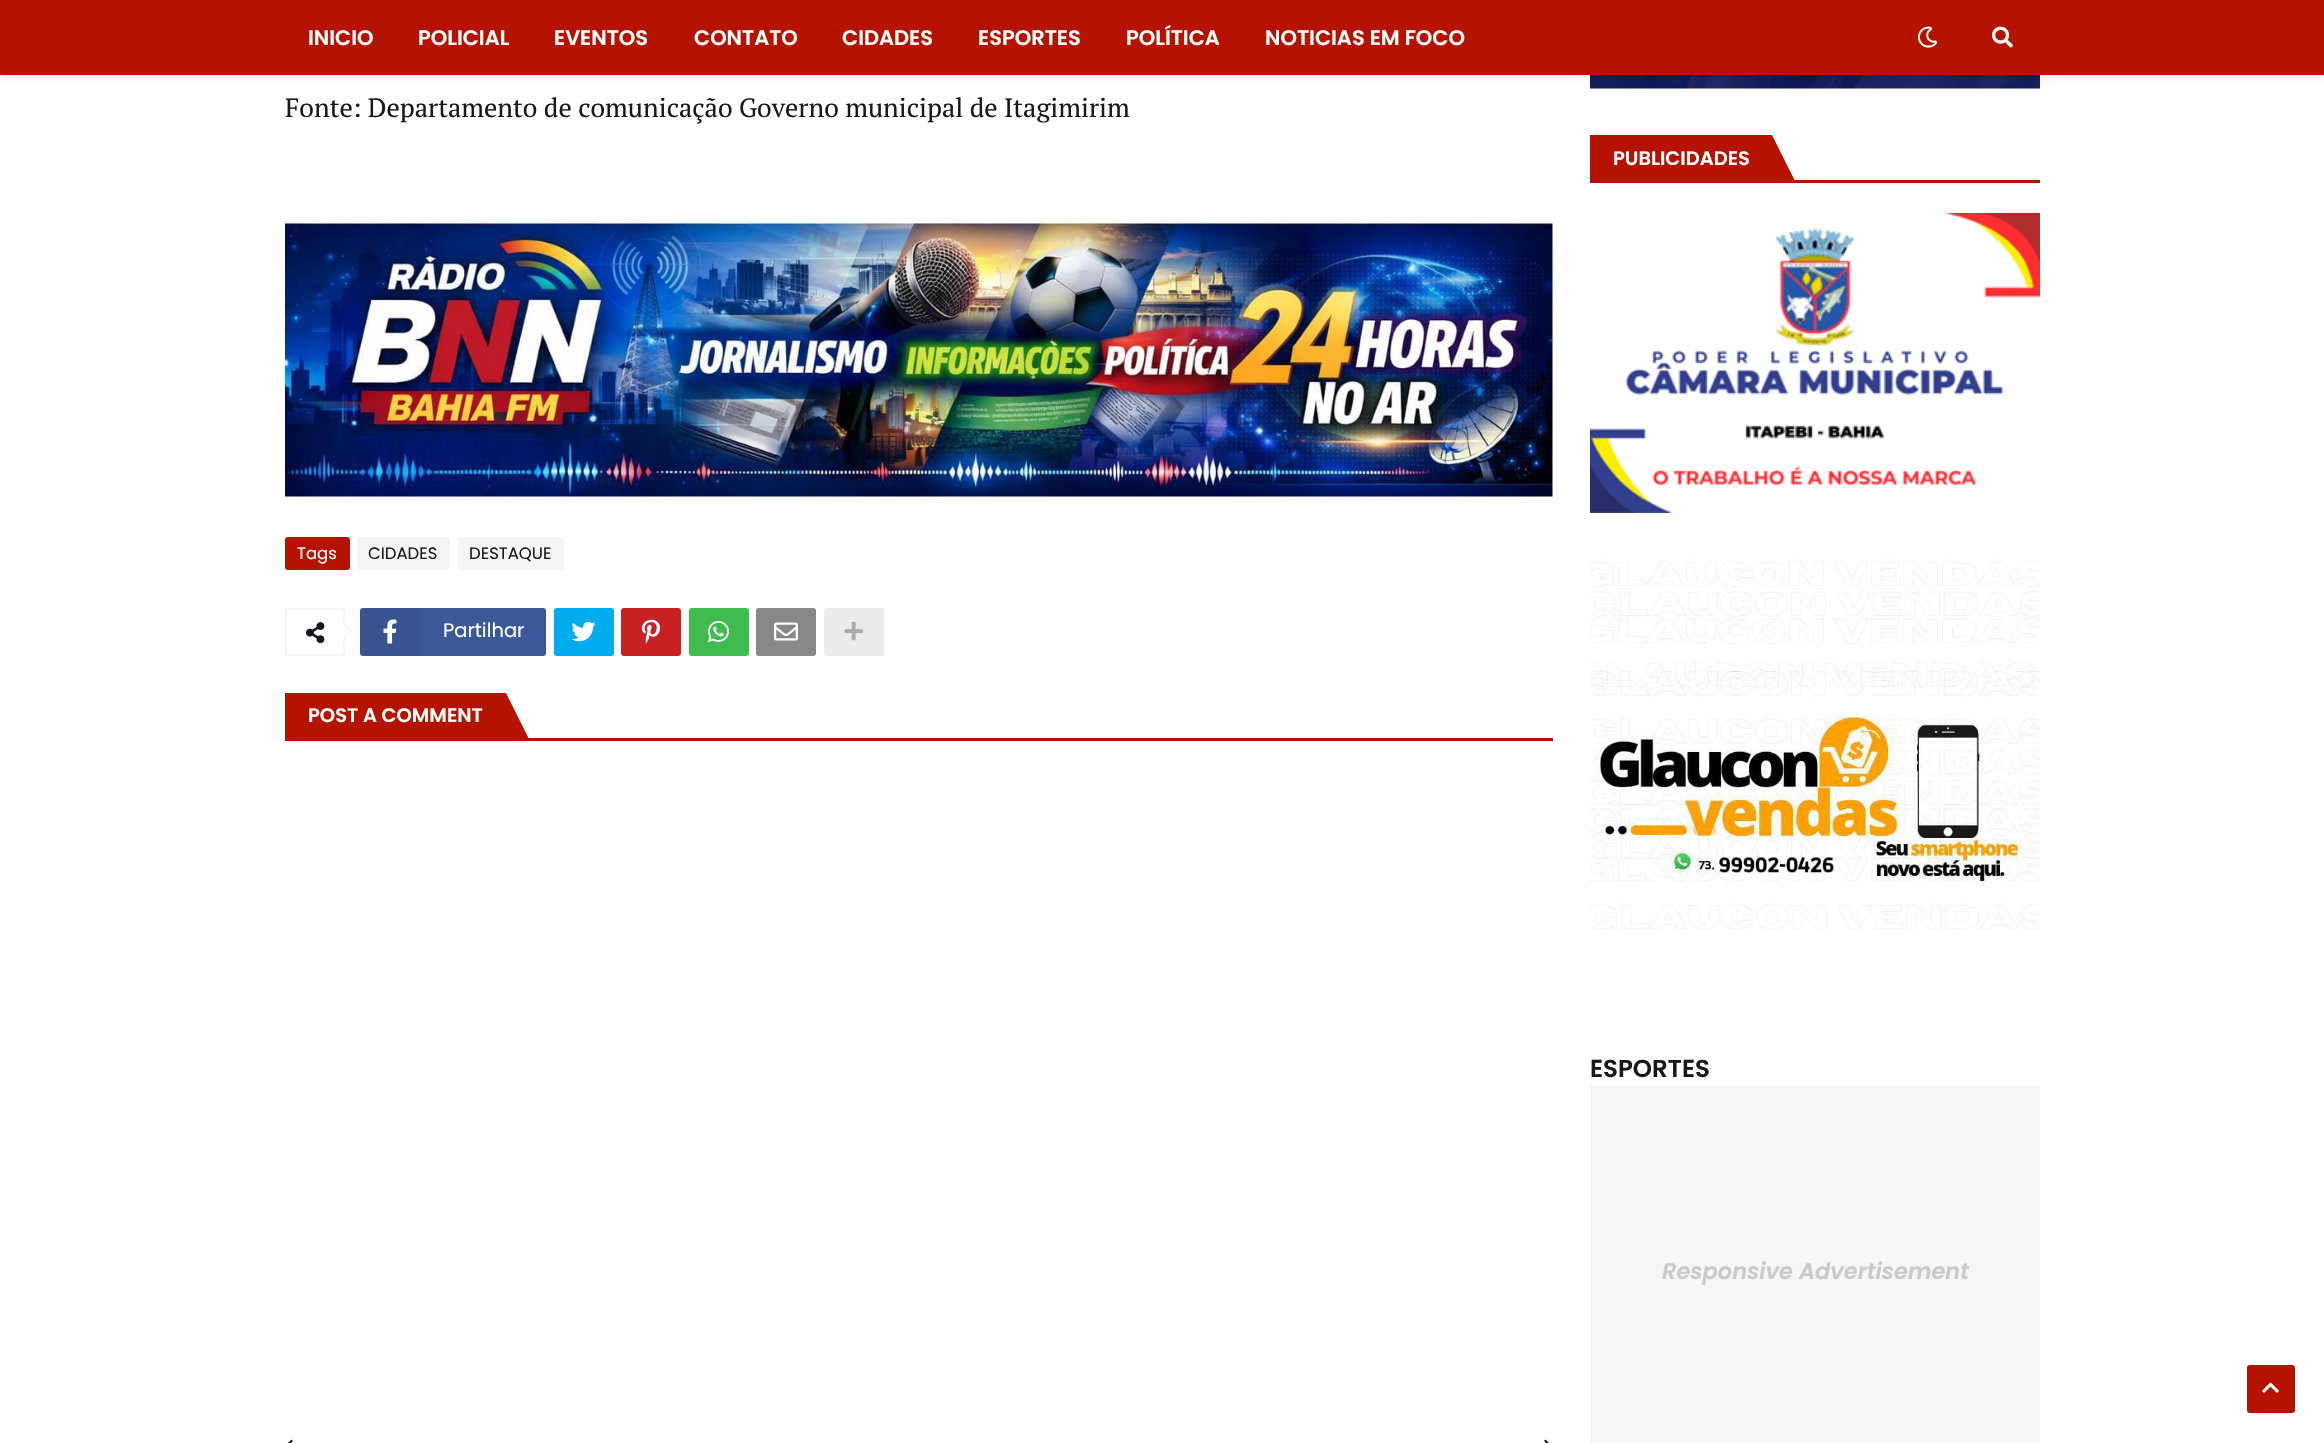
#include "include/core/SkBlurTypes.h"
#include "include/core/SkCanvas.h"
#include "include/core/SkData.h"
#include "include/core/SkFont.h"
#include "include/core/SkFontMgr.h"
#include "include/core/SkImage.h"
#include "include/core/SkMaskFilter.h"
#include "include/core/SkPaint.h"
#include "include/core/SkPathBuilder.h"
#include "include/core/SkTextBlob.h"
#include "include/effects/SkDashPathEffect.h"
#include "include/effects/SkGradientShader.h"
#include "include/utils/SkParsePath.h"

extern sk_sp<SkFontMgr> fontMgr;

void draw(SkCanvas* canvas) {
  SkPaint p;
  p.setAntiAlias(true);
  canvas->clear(SK_ColorWHITE);
  canvas->drawImageRect(SkImages::DeferredFromEncodedData(SkData::MakeFromFileName("images/13.png")), SkRect::MakeLTRB(1590, 75, 2040, 89), SkSamplingOptions());
  p.setColor(SkColorSetARGB(26, 0, 0, 0));
  p.setMaskFilter(SkMaskFilter::MakeBlur(kNormal_SkBlurStyle, 4));
  canvas->drawRect(SkRect::MakeLTRB(0, 2, 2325, 77), p);
  p.setMaskFilter(nullptr);
  p.setColor(SkColorSetRGB(181, 18, 0));
  canvas->drawRect(SkRect::MakeLTRB(0, 0, 2324, 75), p);
  canvas->drawImageRect(SkImages::DeferredFromEncodedData(SkData::MakeFromFileName("images/1.png")), SkRect::MakeLTRB(1917, 26, 1938, 48), SkSamplingOptions());
  canvas->drawImageRect(SkImages::DeferredFromEncodedData(SkData::MakeFromFileName("images/2.png")), SkRect::MakeLTRB(1992, 26, 2013, 48), SkSamplingOptions());
  canvas->drawImageRect(SkImages::DeferredFromEncodedData(SkData::MakeFromFileName("images/3.png")), SkRect::MakeLTRB(285, 220, 1553, 497), SkSamplingOptions());
  canvas->drawRoundRect(SkRect::MakeLTRB(285, 537, 350, 570), 3, 3, p);
  p.setColor(SkColorSetRGB(245, 245, 245));
  canvas->drawRoundRect(SkRect::MakeLTRB(357, 537, 450, 570), 3, 3, p);
  canvas->drawRoundRect(SkRect::MakeLTRB(458, 537, 564, 570), 3, 3, p);
  p.setStyle(SkPaint::kStroke_Style);
  p.setStrokeWidth(2);
  canvas->drawRoundRect(SkRect::MakeLTRB(286, 609, 344, 655), 2, 2, p);
  canvas->drawImageRect(SkImages::DeferredFromEncodedData(SkData::MakeFromFileName("images/4.png")), SkRect::MakeLTRB(306, 622, 325, 644), SkSamplingOptions());
  p.setStyle(SkPaint::kFill_Style);
  p.setColor(SK_ColorWHITE);
  canvas->drawPath(SkPathBuilder().moveTo(343.5f, 622.5f).lineTo(352, 631).lineTo(343.5f, 639.5f).lineTo(335, 631).close().detach(), p);
  p.setColor(SkColorSetARGB(26, 155, 155, 155));
  canvas->drawPath(SkPathBuilder().moveTo(343.5f, 622.5f).lineTo(352, 631).lineTo(350, 631).lineTo(343.5f, 624.5f).close().detach(), p);
  p.setColor(SkColorSetRGB(245, 245, 245));
  canvas->drawPath(SkPathBuilder().moveTo(352, 631).lineTo(343.5f, 639.5f).lineTo(343.5f, 637.5f).lineTo(350, 631).close().detach(), p);
  p.setColor(SkColorSetRGB(59, 89, 153));
  canvas->drawRoundRect(SkRect::MakeLTRB(360, 608, 546, 656), 3, 3, p);
  p.setColor(SkColorSetARGB(13, 0, 0, 0));
  canvas->drawRect(SkRect::MakeLTRB(360, 608, 420, 656), p);
  canvas->drawImageRect(SkImages::DeferredFromEncodedData(SkData::MakeFromFileName("images/5.png")), SkRect::MakeLTRB(383, 619, 397, 644), SkSamplingOptions());
  p.setColor(SkColorSetRGB(0, 172, 238));
  canvas->drawRoundRect(SkRect::MakeLTRB(554, 608, 614, 656), 3, 3, p);
  canvas->drawImageRect(SkImages::DeferredFromEncodedData(SkData::MakeFromFileName("images/6.png")), SkRect::MakeLTRB(571, 621, 596, 642), SkSamplingOptions());
  p.setColor(SkColorSetRGB(202, 33, 39));
  canvas->drawRoundRect(SkRect::MakeLTRB(621, 608, 681, 656), 3, 3, p);
  canvas->drawImageRect(SkImages::DeferredFromEncodedData(SkData::MakeFromFileName("images/7.png")), SkRect::MakeLTRB(642, 619, 660, 644), SkSamplingOptions());
  p.setColor(SkColorSetRGB(63, 187, 80));
  canvas->drawRoundRect(SkRect::MakeLTRB(689, 608, 749, 656), 3, 3, p);
  canvas->drawImageRect(SkImages::DeferredFromEncodedData(SkData::MakeFromFileName("images/8.png")), SkRect::MakeLTRB(708, 621, 729, 642), SkSamplingOptions());
  p.setColor(SkColorSetRGB(136, 136, 136));
  canvas->drawRoundRect(SkRect::MakeLTRB(756, 608, 816, 656), 3, 3, p);
  canvas->drawImageRect(SkImages::DeferredFromEncodedData(SkData::MakeFromFileName("images/9.png")), SkRect::MakeLTRB(774, 622, 798, 641), SkSamplingOptions());
  p.setColor(SkColorSetRGB(235, 235, 235));
  canvas->drawRoundRect(SkRect::MakeLTRB(824, 608, 884, 656), 3, 3, p);
  canvas->drawImageRect(SkImages::DeferredFromEncodedData(SkData::MakeFromFileName("images/10.png")), SkRect::MakeLTRB(844, 621, 863, 641), SkSamplingOptions());
  p.setColor(SkColorSetRGB(181, 18, 0));
  canvas->drawRect(SkRect::MakeLTRB(528, 738, 1553, 741), p);
  canvas->drawRect(SkRect::MakeLTRB(285, 693, 506, 741), p);
  canvas->drawPath(SkPathBuilder().moveTo(506, 741).lineTo(506, 693).lineTo(530, 741).close().detach(), p);
  canvas->drawImageRect(SkImages::DeferredFromEncodedData(SkData::MakeFromFileName("images/11.png")), SkRect::MakeLTRB(288, 1439, 293, 1443), SkSamplingOptions());
  canvas->drawImageRect(SkImages::DeferredFromEncodedData(SkData::MakeFromFileName("images/12.png")), SkRect::MakeLTRB(1544, 1439, 1549, 1443), SkSamplingOptions());
  canvas->drawRect(SkRect::MakeLTRB(1794, 180, 2040, 183), p);
  canvas->drawRect(SkRect::MakeLTRB(1590, 135, 1772, 183), p);
  canvas->drawPath(SkPathBuilder().moveTo(1772, 183).lineTo(1772, 135).lineTo(1796, 183).close().detach(), p);
  canvas->drawImageRect(SkImages::DeferredFromEncodedData(SkData::MakeFromFileName("images/14.png")), SkRect::MakeLTRB(1590, 213, 2040, 513), SkSamplingOptions());
  canvas->drawImageRect(SkImages::DeferredFromEncodedData(SkData::MakeFromFileName("images/15.png")), SkRect::MakeLTRB(1590, 558, 2040, 930), SkSamplingOptions());
  p.setColor(SkColorSetRGB(245, 246, 247));
  canvas->drawRect(SkRect::MakeLTRB(1590, 1085, 2040, 1443), p);
  p.setColor(SkColorSetRGB(181, 18, 0));
  canvas->drawRoundRect(SkRect::MakeLTRB(2247, 1365, 2295, 1413), 3, 3, p);
  canvas->drawImageRect(SkImages::DeferredFromEncodedData(SkData::MakeFromFileName("images/16.png")), SkRect::MakeLTRB(2262, 1382, 2279, 1393), SkSamplingOptions());
  SkFont font1(fontMgr->matchFamilyStyle("Poppins", SkFontStyle(600, SkFontStyle::kNormal_Width, SkFontStyle::kUpright_Slant)), 21);
  font1.setSubpixel(true);
  p.setColor(SK_ColorWHITE);
  canvas->drawString("INICIO", 308, 45, font1, p);
  canvas->drawString("POLICIAL", 418, 45, font1, p);
  canvas->drawString("EVENTOS", 554, 45, font1, p);
  canvas->drawString("CONTATO", 694, 45, font1, p);
  canvas->drawString("CIDADES", 842, 45, font1, p);
  canvas->drawString("ESPORTES", 978, 45, font1, p);
  canvas->drawString("POLÍTICA", 1126, 45, font1, p);
  canvas->drawString("NOTICIAS EM FOCO", 1265, 45, font1, p);
  SkFont font2(fontMgr->matchFamilyStyle("PT Serif", SkFontStyle::Normal()), 26.4f);
  font2.setSubpixel(true);
  p.setColor(SkColorSetRGB(21, 24, 31));
  canvas->drawString("Fonte: Departamento de comunicação Governo municipal de Itagimirim", 285, 117, font2, p);
  SkFont font3(fontMgr->matchFamilyStyle("Poppins", SkFontStyle::Normal()), 16.5f);
  font3.setSubpixel(true);
  p.setColor(SK_ColorWHITE);
  canvas->drawString("Tags", 297, 559, font3, p);
  p.setColor(SkColorSetRGB(21, 24, 31));
  canvas->drawString("CIDADES", 368, 559, font3, p);
  canvas->drawString("DESTAQUE", 469, 559, font3, p);
  SkFont font4(fontMgr->matchFamilyStyle("Poppins", SkFontStyle::Normal()), 19.5f);
  font4.setSubpixel(true);
  p.setColor(SK_ColorWHITE);
  canvas->drawString("Partilhar", 443, 637, font4, p);
  SkFont font5(fontMgr->matchFamilyStyle("Poppins", SkFontStyle(600, SkFontStyle::kNormal_Width, SkFontStyle::kUpright_Slant)), 19.5f);
  font5.setSubpixel(true);
  canvas->drawString("POST A COMMENT", 308, 722, font5, p);
  canvas->drawString("PUBLICIDADES", 1613, 165, font5, p);
  SkFont font6(fontMgr->matchFamilyStyle("Poppins", SkFontStyle(600, SkFontStyle::kNormal_Width, SkFontStyle::kUpright_Slant)), 24.5f);
  font6.setSubpixel(true);
  p.setColor(SkColorSetRGB(21, 24, 31));
  canvas->drawString("ESPORTES", 1590, 1077, font6, p);
  SkFont font7(fontMgr->matchFamilyStyle("Poppins", SkFontStyle(600, SkFontStyle::kNormal_Width, SkFontStyle::kItalic_Slant)), 22.5f);
  font7.setSubpixel(true);
  p.setColor(SkColorSetRGB(200, 201, 201));
  canvas->drawString("Responsive Advertisement", 1662, 1279, font7, p);
}
